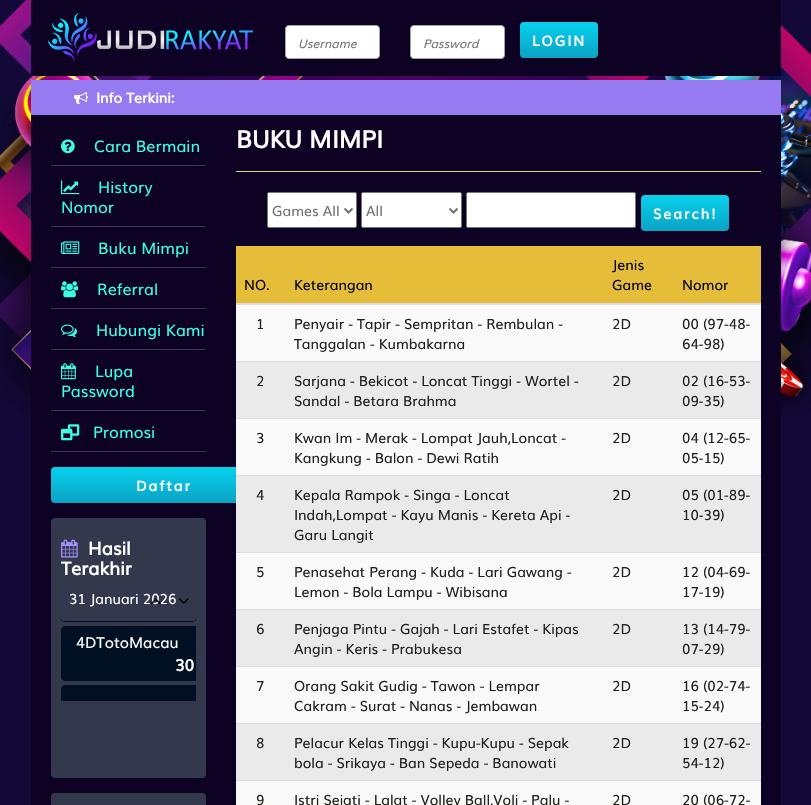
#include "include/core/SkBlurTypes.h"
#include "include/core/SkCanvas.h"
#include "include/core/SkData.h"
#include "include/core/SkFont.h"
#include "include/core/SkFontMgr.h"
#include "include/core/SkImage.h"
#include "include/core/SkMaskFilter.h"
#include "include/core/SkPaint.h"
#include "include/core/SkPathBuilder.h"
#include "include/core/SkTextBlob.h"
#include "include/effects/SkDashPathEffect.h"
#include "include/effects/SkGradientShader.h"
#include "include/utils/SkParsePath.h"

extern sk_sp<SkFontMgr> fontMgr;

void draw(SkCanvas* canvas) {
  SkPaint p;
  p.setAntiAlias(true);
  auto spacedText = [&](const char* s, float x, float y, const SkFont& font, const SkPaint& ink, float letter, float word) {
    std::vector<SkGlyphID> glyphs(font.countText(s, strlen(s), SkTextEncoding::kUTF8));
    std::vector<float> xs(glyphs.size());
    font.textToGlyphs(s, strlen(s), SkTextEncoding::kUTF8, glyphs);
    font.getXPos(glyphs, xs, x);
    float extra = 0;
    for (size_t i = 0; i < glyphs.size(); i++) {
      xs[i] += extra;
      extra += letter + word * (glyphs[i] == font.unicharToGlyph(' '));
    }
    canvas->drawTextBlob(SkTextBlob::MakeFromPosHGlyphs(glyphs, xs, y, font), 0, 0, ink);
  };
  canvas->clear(SkColorSetRGB(18, 9, 55));
  canvas->drawImageRect(SkImages::DeferredFromEncodedData(SkData::MakeFromFileName("images/1.png")), SkRect::MakeLTRB(0, 0, 811, 447), SkSamplingOptions());
  p.setColor(SkColorSetRGB(13, 2, 36));
  canvas->drawRect(SkRect::MakeLTRB(31, 0, 781, 76), p);
  canvas->drawImageRect(SkImages::DeferredFromEncodedData(SkData::MakeFromFileName("images/2.png")), SkRect::MakeLTRB(48, 13, 253, 62), SkSamplingOptions());
  p.setColor(SK_ColorWHITE);
  canvas->drawRoundRect(SkRect::MakeLTRB(285.5f, 25.5f, 379.5f, 58.5f), 3.5f, 3.5f, p);
  p.setStyle(SkPaint::kStroke_Style);
  p.setStrokeWidth(1);
  p.setColor(SkColorSetRGB(165, 165, 165));
  canvas->drawRoundRect(SkRect::MakeLTRB(285.5f, 25.5f, 379.5f, 58.5f), 3.5f, 3.5f, p);
  p.setStyle(SkPaint::kFill_Style);
  p.setColor(SK_ColorWHITE);
  canvas->drawRoundRect(SkRect::MakeLTRB(410.5f, 25.5f, 504.5f, 58.5f), 3.5f, 3.5f, p);
  p.setStyle(SkPaint::kStroke_Style);
  p.setColor(SkColorSetRGB(165, 165, 165));
  canvas->drawRoundRect(SkRect::MakeLTRB(410.5f, 25.5f, 504.5f, 58.5f), 3.5f, 3.5f, p);
  p.setStyle(SkPaint::kFill_Style);
  {
    const SkColor colors[] = {SkColorSetRGB(7, 209, 236), SkColorSetRGB(11, 162, 196)};
    const float stops[] = {0, 1};
    const SkPoint ends[] = {{559, 22}, {559, 58}};
    p.setShader(SkGradientShader::MakeLinear(ends, colors, stops, 2, SkTileMode::kClamp));
    p.setAlpha(255);
  }
  canvas->drawRoundRect(SkRect::MakeLTRB(520, 22, 598, 58), 4, 4, p);
  p.setShader(nullptr);
  p.setColor(SkColorSetRGB(149, 122, 242));
  canvas->drawRect(SkRect::MakeLTRB(31, 80, 781, 115), p);
  canvas->drawImageRect(SkImages::DeferredFromEncodedData(SkData::MakeFromFileName("images/3.png")), SkRect::MakeLTRB(74, 92, 88, 104), SkSamplingOptions());
  p.setColor(SkColorSetRGB(13, 2, 36));
  canvas->drawRect(SkRect::MakeLTRB(31, 115, 781, 805), p);
  p.setColor(SkColorSetRGB(51, 56, 76));
  canvas->drawRect(SkRect::MakeLTRB(51, 165, 206, 166), p);
  canvas->drawImageRect(SkImages::DeferredFromEncodedData(SkData::MakeFromFileName("images/4.png")), SkRect::MakeLTRB(61, 139, 75, 154), SkSamplingOptions());
  canvas->drawRect(SkRect::MakeLTRB(51, 226, 206, 227), p);
  canvas->drawImageRect(SkImages::DeferredFromEncodedData(SkData::MakeFromFileName("images/5.png")), SkRect::MakeLTRB(61, 180, 80, 195), SkSamplingOptions());
  canvas->drawRect(SkRect::MakeLTRB(51, 267, 206, 268), p);
  canvas->drawImageRect(SkImages::DeferredFromEncodedData(SkData::MakeFromFileName("images/6.png")), SkRect::MakeLTRB(61, 241, 80, 254), SkSamplingOptions());
  canvas->drawRect(SkRect::MakeLTRB(51, 308, 206, 309), p);
  canvas->drawImageRect(SkImages::DeferredFromEncodedData(SkData::MakeFromFileName("images/7.png")), SkRect::MakeLTRB(61, 281, 79, 298), SkSamplingOptions());
  canvas->drawRect(SkRect::MakeLTRB(51, 349, 206, 350), p);
  canvas->drawImageRect(SkImages::DeferredFromEncodedData(SkData::MakeFromFileName("images/8.png")), SkRect::MakeLTRB(61, 324, 77, 338), SkSamplingOptions());
  canvas->drawRect(SkRect::MakeLTRB(51, 410, 206, 411), p);
  canvas->drawImageRect(SkImages::DeferredFromEncodedData(SkData::MakeFromFileName("images/9.png")), SkRect::MakeLTRB(61, 363, 76, 380), SkSamplingOptions());
  canvas->drawRect(SkRect::MakeLTRB(51, 451, 206, 452), p);
  canvas->drawImageRect(SkImages::DeferredFromEncodedData(SkData::MakeFromFileName("images/10.png")), SkRect::MakeLTRB(61, 424, 80, 441), SkSamplingOptions());
  {
    const SkColor colors[] = {SkColorSetRGB(7, 209, 236), SkColorSetRGB(11, 162, 196)};
    const float stops[] = {0, 1};
    const SkPoint ends[] = {{164, 467}, {164, 503}};
    p.setShader(SkGradientShader::MakeLinear(ends, colors, stops, 2, SkTileMode::kClamp));
    p.setAlpha(255);
  }
  canvas->drawRoundRect(SkRect::MakeLTRB(51, 467, 277, 503), 4, 4, p);
  p.setShader(nullptr);
  p.setColor(SkColorSetRGB(51, 56, 76));
  canvas->drawRoundRect(SkRect::MakeLTRB(51, 518, 206, 778), 4, 4, p);
  canvas->drawImageRect(SkImages::DeferredFromEncodedData(SkData::MakeFromFileName("images/11.png")), SkRect::MakeLTRB(61, 539, 78, 558), SkSamplingOptions());
  canvas->drawImageRect(SkImages::DeferredFromEncodedData(SkData::MakeFromFileName("images/13.png")), SkRect::MakeLTRB(178, 598, 189, 604), SkSamplingOptions());
  p.setColor(SkColorSetRGB(0, 15, 33));
  canvas->drawPath(SkPathBuilder().moveTo(61, 621).lineTo(196, 621).lineTo(196, 618).cubicTo(196, 620, 194, 622, 192, 622).lineTo(65, 622).cubicTo(63, 622, 61, 620, 61, 618).close().detach(), p);
  canvas->drawPath(SkPathBuilder().moveTo(65, 626).lineTo(196, 626).lineTo(196, 681).lineTo(65, 681).cubicTo(63, 681, 61, 679, 61, 677).lineTo(61, 630).cubicTo(61, 628, 63, 626, 65, 626).close().detach(), p);
  canvas->drawPath(SkPathBuilder().moveTo(65, 685).lineTo(196, 685).lineTo(196, 701).lineTo(61, 701).lineTo(61, 689).cubicTo(61, 687, 63, 685, 65, 685).close().detach(), p);
  p.setColor(SkColorSetRGB(51, 56, 76));
  canvas->drawRoundRect(SkRect::MakeLTRB(51, 793, 206, 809), 4, 4, p);
  p.setColor(SkColorSetRGB(231, 213, 124));
  canvas->drawRect(SkRect::MakeLTRB(236, 171, 761, 172), p);
  p.setColor(SK_ColorWHITE);
  canvas->drawRoundRect(SkRect::MakeLTRB(267.5f, 192.5f, 356.5f, 227.5f), 1.5f, 1.5f, p);
  p.setStyle(SkPaint::kStroke_Style);
  p.setColor(SkColorSetRGB(118, 118, 118));
  canvas->drawRoundRect(SkRect::MakeLTRB(267.5f, 192.5f, 356.5f, 227.5f), 1.5f, 1.5f, p);
  p.setStrokeWidth(2);
  p.setColor(SkColorSetRGB(113, 113, 113));
  canvas->drawPath(SkPathBuilder().moveTo(344.5f, 208.5f).lineTo(348.5f, 212.5f).lineTo(352.5f, 208.5f).detach(), p);
  p.setStyle(SkPaint::kFill_Style);
  p.setColor(SK_ColorWHITE);
  canvas->drawRoundRect(SkRect::MakeLTRB(361.5f, 192.5f, 461.5f, 227.5f), 1.5f, 1.5f, p);
  p.setStyle(SkPaint::kStroke_Style);
  p.setStrokeWidth(1);
  p.setColor(SkColorSetRGB(118, 118, 118));
  canvas->drawRoundRect(SkRect::MakeLTRB(361.5f, 192.5f, 461.5f, 227.5f), 1.5f, 1.5f, p);
  p.setStrokeWidth(2);
  p.setColor(SkColorSetRGB(113, 113, 113));
  canvas->drawPath(SkPathBuilder().moveTo(449.5f, 208.5f).lineTo(453.5f, 212.5f).lineTo(457.5f, 208.5f).detach(), p);
  p.setStyle(SkPaint::kFill_Style);
  p.setColor(SK_ColorWHITE);
  canvas->drawRoundRect(SkRect::MakeLTRB(466.5f, 192.5f, 635.5f, 227.5f), 1.5f, 1.5f, p);
  p.setStyle(SkPaint::kStroke_Style);
  p.setStrokeWidth(1);
  p.setColor(SkColorSetRGB(118, 118, 118));
  canvas->drawRoundRect(SkRect::MakeLTRB(466.5f, 192.5f, 635.5f, 227.5f), 1.5f, 1.5f, p);
  p.setStyle(SkPaint::kFill_Style);
  {
    const SkColor colors[] = {SkColorSetRGB(7, 209, 236), SkColorSetRGB(11, 162, 196)};
    const float stops[] = {0, 1};
    const SkPoint ends[] = {{685, 195}, {685, 231}};
    p.setShader(SkGradientShader::MakeLinear(ends, colors, stops, 2, SkTileMode::kClamp));
    p.setAlpha(255);
  }
  canvas->drawRoundRect(SkRect::MakeLTRB(641, 195, 729, 231), 4, 4, p);
  p.setShader(nullptr);
  p.setColor(SkColorSetRGB(229, 189, 57));
  canvas->drawRect(SkRect::MakeLTRB(236, 246, 761, 303), p);
  p.setColor(SkColorSetRGB(221, 221, 221));
  canvas->drawRect(SkRect::MakeLTRB(236, 303, 761, 305), p);
  p.setColor(SkColorSetRGB(249, 249, 249));
  canvas->drawRect(SkRect::MakeLTRB(236, 305, 761, 361), p);
  p.setColor(SkColorSetRGB(234, 234, 234));
  canvas->drawRect(SkRect::MakeLTRB(236, 362, 761, 418), p);
  p.setColor(SkColorSetRGB(221, 221, 221));
  canvas->drawRect(SkRect::MakeLTRB(236, 361, 761, 362), p);
  p.setColor(SkColorSetRGB(249, 249, 249));
  canvas->drawRect(SkRect::MakeLTRB(236, 419, 761, 475), p);
  p.setColor(SkColorSetRGB(221, 221, 221));
  canvas->drawRect(SkRect::MakeLTRB(236, 418, 761, 419), p);
  p.setColor(SkColorSetRGB(234, 234, 234));
  canvas->drawRect(SkRect::MakeLTRB(236, 476, 761, 552), p);
  p.setColor(SkColorSetRGB(221, 221, 221));
  canvas->drawRect(SkRect::MakeLTRB(236, 475, 761, 476), p);
  p.setColor(SkColorSetRGB(249, 249, 249));
  canvas->drawRect(SkRect::MakeLTRB(236, 553, 761, 609), p);
  p.setColor(SkColorSetRGB(221, 221, 221));
  canvas->drawRect(SkRect::MakeLTRB(236, 552, 761, 553), p);
  p.setColor(SkColorSetRGB(234, 234, 234));
  canvas->drawRect(SkRect::MakeLTRB(236, 610, 761, 666), p);
  p.setColor(SkColorSetRGB(221, 221, 221));
  canvas->drawRect(SkRect::MakeLTRB(236, 609, 761, 610), p);
  p.setColor(SkColorSetRGB(249, 249, 249));
  canvas->drawRect(SkRect::MakeLTRB(236, 667, 761, 723), p);
  p.setColor(SkColorSetRGB(221, 221, 221));
  canvas->drawRect(SkRect::MakeLTRB(236, 666, 761, 667), p);
  p.setColor(SkColorSetRGB(234, 234, 234));
  canvas->drawRect(SkRect::MakeLTRB(236, 724, 761, 780), p);
  p.setColor(SkColorSetRGB(221, 221, 221));
  canvas->drawRect(SkRect::MakeLTRB(236, 723, 761, 724), p);
  p.setColor(SkColorSetRGB(249, 249, 249));
  canvas->drawRect(SkRect::MakeLTRB(236, 781, 761, 805), p);
  p.setColor(SkColorSetRGB(221, 221, 221));
  canvas->drawRect(SkRect::MakeLTRB(236, 780, 761, 781), p);
  SkFont font1(fontMgr->matchFamilyStyle("Muli", SkFontStyle::Italic()), 12);
  font1.setSubpixel(true);
  p.setColor(SkColorSetRGB(119, 119, 119));
  canvas->drawString("Username", 298, 48, font1, p);
  canvas->drawString("Password", 423, 48, font1, p);
  SkFont font2(fontMgr->matchFamilyStyle("Muli", SkFontStyle::Bold()), 14);
  font2.setSubpixel(true);
  p.setColor(SK_ColorWHITE);
  spacedText("LOGIN", 532, 46, font2, p, 2, 0);
  canvas->drawString("Info Terkini:", 96, 103, font2, p);
  SkFont font3(fontMgr->matchFamilyStyle("Muli", SkFontStyle::Normal()), 16);
  font3.setSubpixel(true);
  p.setColor(SkColorSetRGB(57, 255, 229));
  canvas->drawString("Cara Bermain", 94, 152, font3, p);
  canvas->drawString("History", 98, 193, font3, p);
  canvas->drawString("Nomor", 61, 213, font3, p);
  canvas->drawString("Buku Mimpi", 98, 254, font3, p);
  canvas->drawString("Referral", 97, 295, font3, p);
  canvas->drawString("Hubungi Kami", 96, 336, font3, p);
  canvas->drawString("Lupa", 95, 377, font3, p);
  canvas->drawString("Password", 61, 397, font3, p);
  canvas->drawString("Promosi", 93, 438, font3, p);
  p.setColor(SK_ColorWHITE);
  spacedText("Daftar", 136, 491, font2, p, 2, 0);
  SkFont font4(fontMgr->matchFamilyStyle("Muli", SkFontStyle::Bold()), 18);
  font4.setSubpixel(true);
  canvas->drawString("Hasil", 88, 555, font4, p);
  canvas->drawString("Terakhir", 61, 575, font4, p);
  SkFont font5(fontMgr->matchFamilyStyle("Muli", SkFontStyle::Normal()), 14);
  font5.setSubpixel(true);
  canvas->drawString("31 Januari 2026", 69, 604, font5, p);
  canvas->drawImageRect(SkImages::DeferredFromEncodedData(SkData::MakeFromFileName("images/12.png")), SkRect::MakeLTRB(150, 598, 161, 605), SkSamplingOptions());
  SkFont font6(fontMgr->matchFamilyStyle("Muli", SkFontStyle::Normal()), 15);
  font6.setSubpixel(true);
  canvas->drawString("4DTotoMacau", 76, 648, font6, p);
  SkFont font7(fontMgr->matchFamilyStyle("Muli", SkFontStyle::Bold()), 16);
  font7.setSubpixel(true);
  canvas->drawString("30", 175, 671, font7, p);
  SkFont font8(fontMgr->matchFamilyStyle("Muli", SkFontStyle::Bold()), 24);
  font8.setSubpixel(true);
  canvas->drawString("BUKU MIMPI", 236, 148, font8, p);
  p.setColor(SkColorSetRGB(113, 113, 113));
  canvas->drawString("Games All", 272, 216, font5, p);
  canvas->drawString("All", 366, 216, font5, p);
  p.setColor(SK_ColorWHITE);
  spacedText("Search!", 653, 219, font2, p, 2, 0);
  p.setColor(SK_ColorBLACK);
  canvas->drawString("NO.", 244, 290, font5, p);
  canvas->drawString("Keterangan", 294, 290, font5, p);
  canvas->drawString("Jenis", 612, 270, font5, p);
  canvas->drawString("Game", 612, 290, font5, p);
  canvas->drawString("Nomor", 682, 290, font5, p);
  p.setColor(SkColorSetRGB(30, 32, 28));
  canvas->drawString("1", 256, 329, font5, p);
  canvas->drawString("Penyair - Tapir - Sempritan - Rembulan -", 294, 329, font5, p);
  canvas->drawString("Tanggalan - Kumbakarna", 294, 349, font5, p);
  canvas->drawString("2D", 612, 329, font5, p);
  canvas->drawString("00 (97-48-", 682, 329, font5, p);
  canvas->drawString("64-98)", 682, 349, font5, p);
  canvas->drawString("2", 256, 386, font5, p);
  canvas->drawString("Sarjana - Bekicot - Loncat Tinggi - Wortel -", 294, 386, font5, p);
  canvas->drawString("Sandal - Betara Brahma", 294, 406, font5, p);
  canvas->drawString("2D", 612, 386, font5, p);
  canvas->drawString("02 (16-53-", 682, 386, font5, p);
  canvas->drawString("09-35)", 682, 406, font5, p);
  canvas->drawString("3", 256, 443, font5, p);
  canvas->drawString("Kwan Im - Merak - Lompat Jauh,Loncat -", 294, 443, font5, p);
  canvas->drawString("Kangkung - Balon - Dewi Ratih", 294, 463, font5, p);
  canvas->drawString("2D", 612, 443, font5, p);
  canvas->drawString("04 (12-65-", 682, 443, font5, p);
  canvas->drawString("05-15)", 682, 463, font5, p);
  canvas->drawString("4", 256, 500, font5, p);
  canvas->drawString("Kepala Rampok - Singa - Loncat", 294, 500, font5, p);
  canvas->drawString("Indah,Lompat - Kayu Manis - Kereta Api -", 294, 520, font5, p);
  canvas->drawString("Garu Langit", 294, 540, font5, p);
  canvas->drawString("2D", 612, 500, font5, p);
  canvas->drawString("05 (01-89-", 682, 500, font5, p);
  canvas->drawString("10-39)", 682, 520, font5, p);
  canvas->drawString("5", 256, 577, font5, p);
  canvas->drawString("Penasehat Perang - Kuda - Lari Gawang -", 294, 577, font5, p);
  canvas->drawString("Lemon - Bola Lampu - Wibisana", 294, 597, font5, p);
  canvas->drawString("2D", 612, 577, font5, p);
  canvas->drawString("12 (04-69-", 682, 577, font5, p);
  canvas->drawString("17-19)", 682, 597, font5, p);
  canvas->drawString("6", 256, 634, font5, p);
  canvas->drawString("Penjaga Pintu - Gajah - Lari Estafet - Kipas", 294, 634, font5, p);
  canvas->drawString("Angin - Keris - Prabukesa", 294, 654, font5, p);
  canvas->drawString("2D", 612, 634, font5, p);
  canvas->drawString("13 (14-79-", 682, 634, font5, p);
  canvas->drawString("07-29)", 682, 654, font5, p);
  canvas->drawString("7", 256, 691, font5, p);
  canvas->drawString("Orang Sakit Gudig - Tawon - Lempar", 294, 691, font5, p);
  canvas->drawString("Cakram - Surat - Nanas - Jembawan", 294, 711, font5, p);
  canvas->drawString("2D", 612, 691, font5, p);
  canvas->drawString("16 (02-74-", 682, 691, font5, p);
  canvas->drawString("15-24)", 682, 711, font5, p);
  canvas->drawString("8", 256, 748, font5, p);
  canvas->drawString("Pelacur Kelas Tinggi - Kupu-Kupu - Sepak", 294, 748, font5, p);
  canvas->drawString("bola - Srikaya - Ban Sepeda - Banowati", 294, 768, font5, p);
  canvas->drawString("2D", 612, 748, font5, p);
  canvas->drawString("19 (27-62-", 682, 748, font5, p);
  canvas->drawString("54-12)", 682, 768, font5, p);
  canvas->drawString("9", 256, 805, font5, p);
  canvas->drawString("Istri Sejati - Lalat - Volley Ball,Voli - Palu -", 294, 805, font5, p);
  canvas->drawString("2D", 612, 805, font5, p);
  canvas->drawString("20 (06-72-", 682, 805, font5, p);
}
